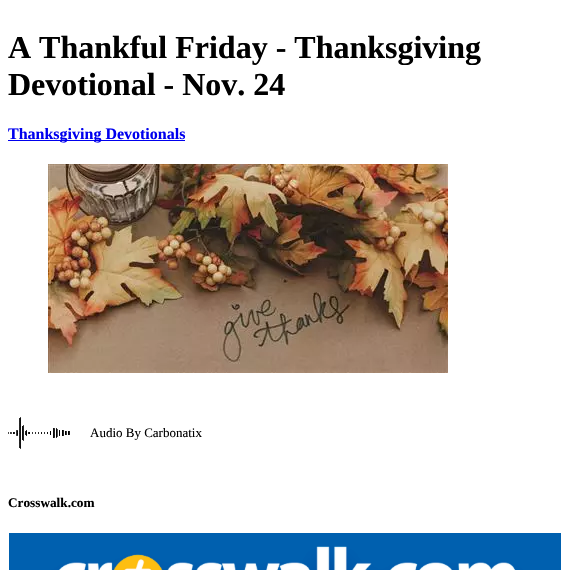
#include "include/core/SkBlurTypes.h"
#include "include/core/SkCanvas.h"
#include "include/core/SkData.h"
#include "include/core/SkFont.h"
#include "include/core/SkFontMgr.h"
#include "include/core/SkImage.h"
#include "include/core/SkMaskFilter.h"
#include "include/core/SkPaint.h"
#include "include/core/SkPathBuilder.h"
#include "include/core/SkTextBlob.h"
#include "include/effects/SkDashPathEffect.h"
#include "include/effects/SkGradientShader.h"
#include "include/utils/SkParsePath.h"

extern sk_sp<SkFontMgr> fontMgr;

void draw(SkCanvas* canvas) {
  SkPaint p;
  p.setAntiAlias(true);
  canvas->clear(SK_ColorWHITE);
  p.setColor(SkColorSetRGB(0, 0, 238));
  canvas->drawRect(SkRect::MakeLTRB(8, 140, 185, 141), p);
  canvas->drawImageRect(SkImages::DeferredFromEncodedData(SkData::MakeFromFileName("images/1.png")), SkRect::MakeLTRB(48, 164, 448, 373), SkSamplingOptions());
  canvas->drawImageRect(SkImages::DeferredFromEncodedData(SkData::MakeFromFileName("images/2.png")), SkRect::MakeLTRB(8, 417, 70, 449), SkSamplingOptions());
  canvas->drawImageRect(SkImages::DeferredFromEncodedData(SkData::MakeFromFileName("images/3.png")), SkRect::MakeLTRB(9, 533, 561, 570), SkSamplingOptions());
  SkFont font1(fontMgr->matchFamilyStyle("Liberation Serif", SkFontStyle::Bold()), 32);
  font1.setSubpixel(true);
  p.setColor(SK_ColorBLACK);
  canvas->drawString("A Thankful Friday - Thanksgiving", 8, 58, font1, p);
  canvas->drawString("Devotional - Nov. 24", 8, 95, font1, p);
  SkFont font2(fontMgr->matchFamilyStyle("Liberation Serif", SkFontStyle::Bold()), 16);
  font2.setSubpixel(true);
  p.setColor(SkColorSetRGB(0, 0, 238));
  canvas->drawString("Thanksgiving Devotionals", 8, 139, font2, p);
  SkFont font3(fontMgr->matchFamilyStyle("Liberation Serif", SkFontStyle::Normal()), 13);
  font3.setSubpixel(true);
  p.setColor(SK_ColorBLACK);
  canvas->drawString("Audio By Carbonatix", 90, 437, font3, p);
  SkFont font4(fontMgr->matchFamilyStyle("Liberation Serif", SkFontStyle::Bold()), 13.25f);
  font4.setSubpixel(true);
  canvas->drawString("Crosswalk.com", 8, 507, font4, p);
}
